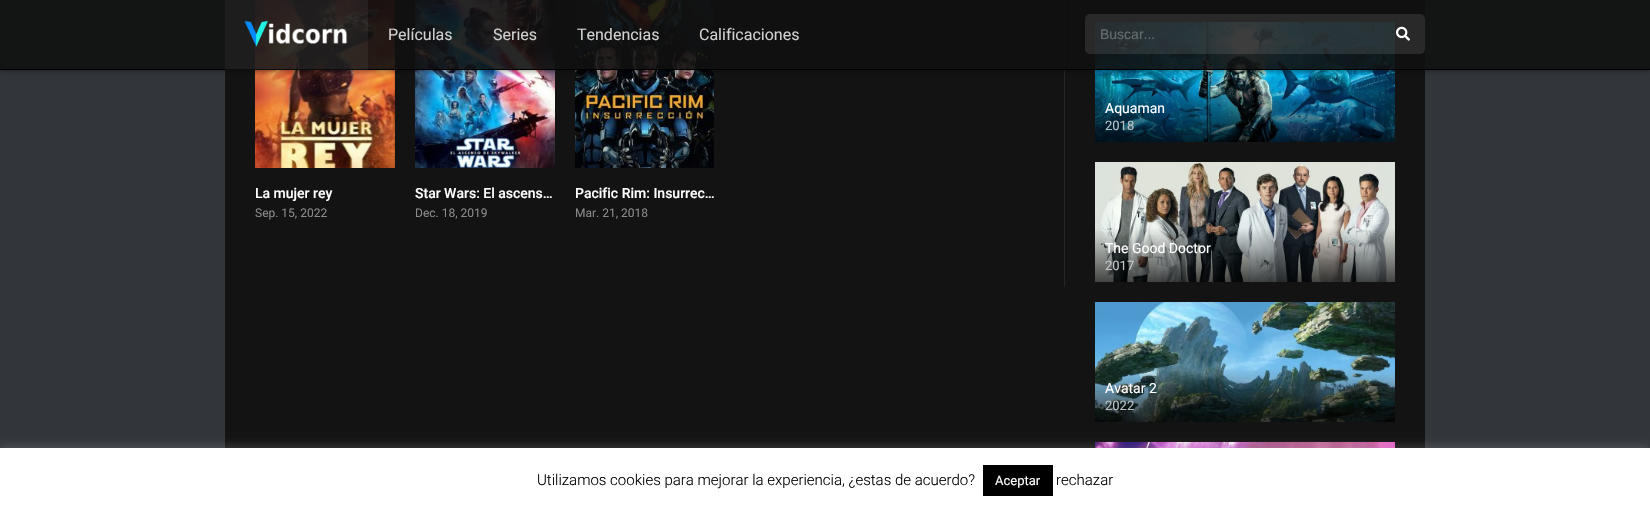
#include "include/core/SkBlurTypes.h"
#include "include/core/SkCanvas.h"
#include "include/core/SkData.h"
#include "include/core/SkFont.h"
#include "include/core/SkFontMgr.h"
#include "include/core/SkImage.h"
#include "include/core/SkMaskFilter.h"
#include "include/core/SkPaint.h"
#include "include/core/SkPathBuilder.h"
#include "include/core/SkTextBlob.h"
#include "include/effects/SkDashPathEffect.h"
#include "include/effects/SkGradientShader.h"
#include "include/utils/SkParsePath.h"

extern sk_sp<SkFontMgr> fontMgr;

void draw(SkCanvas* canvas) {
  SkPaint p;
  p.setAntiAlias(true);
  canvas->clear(SkColorSetRGB(50, 53, 58));
  p.setColor(SkColorSetRGB(19, 19, 19));
  canvas->drawRect(SkRect::MakeLTRB(225, 0, 1425, 448), p);
  p.setColor(SkColorSetRGB(38, 38, 38));
  canvas->drawRect(SkRect::MakeLTRB(1064, 0, 1065, 287), p);
  canvas->drawImageRect(SkImages::DeferredFromEncodedData(SkData::MakeFromFileName("images/3.png")), SkRect::MakeLTRB(255, 0, 395, 168), SkSamplingOptions());
  canvas->drawImageRect(SkImages::DeferredFromEncodedData(SkData::MakeFromFileName("images/4.png")), SkRect::MakeLTRB(415, 0, 555, 168), SkSamplingOptions());
  canvas->drawImageRect(SkImages::DeferredFromEncodedData(SkData::MakeFromFileName("images/5.png")), SkRect::MakeLTRB(575, 0, 714, 168), SkSamplingOptions());
  {
    const SkColor colors[] = {SkColorSetRGB(19, 19, 19), SkColorSetRGB(6, 6, 6)};
    const float stops[] = {0, 1};
    const SkPoint ends[] = {{1245, -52}, {1245, 2}};
    p.setShader(SkGradientShader::MakeLinear(ends, colors, stops, 2, SkTileMode::kClamp));
    p.setAlpha(255);
  }
  canvas->drawRect(SkRect::MakeLTRB(1095, 0, 1395, 2), p);
  canvas->drawImageRect(SkImages::DeferredFromEncodedData(SkData::MakeFromFileName("images/6.png")), SkRect::MakeLTRB(1095, 22, 1395, 142), SkSamplingOptions());
  canvas->save();
  canvas->clipRect(SkRect::MakeLTRB(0, 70, 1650, 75));
  p.setShader(nullptr);
  p.setColor(SkColorSetARGB(102, 0, 0, 0));
  p.setMaskFilter(SkMaskFilter::MakeBlur(kNormal_SkBlurStyle, 2.5f));
  canvas->drawRect(SkRect::MakeLTRB(0, 1, 1650, 71), p);
  p.setMaskFilter(nullptr);
  canvas->restore();
  p.setColor(SkColorSetARGB(230, 15, 15, 15));
  canvas->drawRect(SkRect::MakeLTRB(0, 0, 1650, 69), p);
  p.setColor(SK_ColorBLACK);
  canvas->drawRect(SkRect::MakeLTRB(0, 69, 1650, 70), p);
  p.setColor(SkColorSetARGB(13, 255, 255, 255));
  canvas->drawRect(SkRect::MakeLTRB(225, 0, 368, 70), p);
  canvas->drawImageRect(SkImages::DeferredFromEncodedData(SkData::MakeFromFileName("images/1.png")), SkRect::MakeLTRB(244, 20, 348, 47), SkSamplingOptions());
  p.setColor(SkColorSetARGB(26, 255, 255, 255));
  canvas->drawRoundRect(SkRect::MakeLTRB(1085, 14, 1425, 54), 5, 5, p);
  canvas->drawImageRect(SkImages::DeferredFromEncodedData(SkData::MakeFromFileName("images/2.png")), SkRect::MakeLTRB(1396, 26, 1410, 41), SkSamplingOptions());
  canvas->drawImageRect(SkImages::DeferredFromEncodedData(SkData::MakeFromFileName("images/7.png")), SkRect::MakeLTRB(1095, 162, 1395, 282), SkSamplingOptions());
  canvas->drawImageRect(SkImages::DeferredFromEncodedData(SkData::MakeFromFileName("images/8.png")), SkRect::MakeLTRB(1095, 302, 1395, 422), SkSamplingOptions());
  canvas->drawImageRect(SkImages::DeferredFromEncodedData(SkData::MakeFromFileName("images/9.png")), SkRect::MakeLTRB(1095, 442, 1395, 448), SkSamplingOptions());
  p.setColor(SkColorSetARGB(77, 172, 171, 171));
  p.setMaskFilter(SkMaskFilter::MakeBlur(kNormal_SkBlurStyle, 5));
  canvas->drawRect(SkRect::MakeLTRB(0, 447, 1650, 507), p);
  p.setMaskFilter(nullptr);
  p.setColor(SK_ColorWHITE);
  canvas->drawRect(SkRect::MakeLTRB(0, 448, 1650, 508), p);
  p.setColor(SK_ColorBLACK);
  canvas->drawRect(SkRect::MakeLTRB(983, 465, 1053, 496), p);
  SkFont font1(fontMgr->matchFamilyStyle("Roboto", SkFontStyle::Normal()), 16);
  font1.setSubpixel(true);
  p.setColor(SkColorSetRGB(208, 208, 208));
  canvas->drawString("Películas", 388, 40, font1, p);
  canvas->drawString("Series", 493, 40, font1, p);
  canvas->drawString("Tendencias", 577, 40, font1, p);
  canvas->drawString("Calificaciones", 699, 40, font1, p);
  SkFont font2(fontMgr->matchFamilyStyle("Liberation Sans", SkFontStyle::Normal()), 14);
  font2.setSubpixel(true);
  p.setColor(SkColorSetRGB(103, 110, 112));
  canvas->drawString("Buscar...", 1100, 39, font2, p);
  SkFont font3(fontMgr->matchFamilyStyle("Roboto", SkFontStyle(500, SkFontStyle::kNormal_Width, SkFontStyle::kUpright_Slant)), 14);
  font3.setSubpixel(true);
  p.setColor(SK_ColorWHITE);
  canvas->drawString("La mujer rey", 255, 198, font3, p);
  SkFont font4(fontMgr->matchFamilyStyle("Roboto", SkFontStyle::Normal()), 12);
  font4.setSubpixel(true);
  p.setColor(SkColorSetRGB(137, 137, 137));
  canvas->drawString("Sep. 15, 2022", 255, 217, font4, p);
  p.setColor(SK_ColorWHITE);
  canvas->drawString("Star Wars: El ascens…", 415, 198, font3, p);
  p.setColor(SkColorSetRGB(137, 137, 137));
  canvas->drawString("Dec. 18, 2019", 415, 217, font4, p);
  p.setColor(SK_ColorWHITE);
  canvas->drawString("Pacific Rim: Insurrec…", 575, 198, font3, p);
  p.setColor(SkColorSetRGB(137, 137, 137));
  canvas->drawString("Mar. 21, 2018", 575, 217, font4, p);
  SkFont font5(fontMgr->matchFamilyStyle("Roboto", SkFontStyle::Normal()), 14);
  font5.setSubpixel(true);
  p.setColor(SK_ColorWHITE);
  canvas->drawString("Aquaman", 1105, 113, font5, p);
  SkFont font6(fontMgr->matchFamilyStyle("Roboto", SkFontStyle::Normal()), 13);
  font6.setSubpixel(true);
  p.setColor(SkColorSetRGB(182, 194, 200));
  canvas->drawString("2018", 1105, 130, font6, p);
  p.setColor(SK_ColorWHITE);
  canvas->drawString("The Good Doctor", 1105, 253, font5, p);
  p.setColor(SkColorSetRGB(197, 198, 198));
  canvas->drawString("2017", 1105, 270, font6, p);
  p.setColor(SK_ColorWHITE);
  canvas->drawString("Avatar 2", 1105, 393, font5, p);
  p.setColor(SkColorSetRGB(188, 193, 194));
  canvas->drawString("2022", 1105, 410, font6, p);
  SkFont font7(fontMgr->matchFamilyStyle("Roboto", SkFontStyle(300, SkFontStyle::kNormal_Width, SkFontStyle::kUpright_Slant)), 15);
  font7.setSubpixel(true);
  p.setColor(SK_ColorBLACK);
  canvas->drawString("Utilizamos cookies para mejorar la experiencia, ¿estas de acuerdo?", 537, 485, font7, p);
  p.setColor(SK_ColorWHITE);
  canvas->drawString("Aceptar", 995, 485, font6, p);
  p.setColor(SK_ColorBLACK);
  canvas->drawString("rechazar", 1056, 485, font7, p);
}
